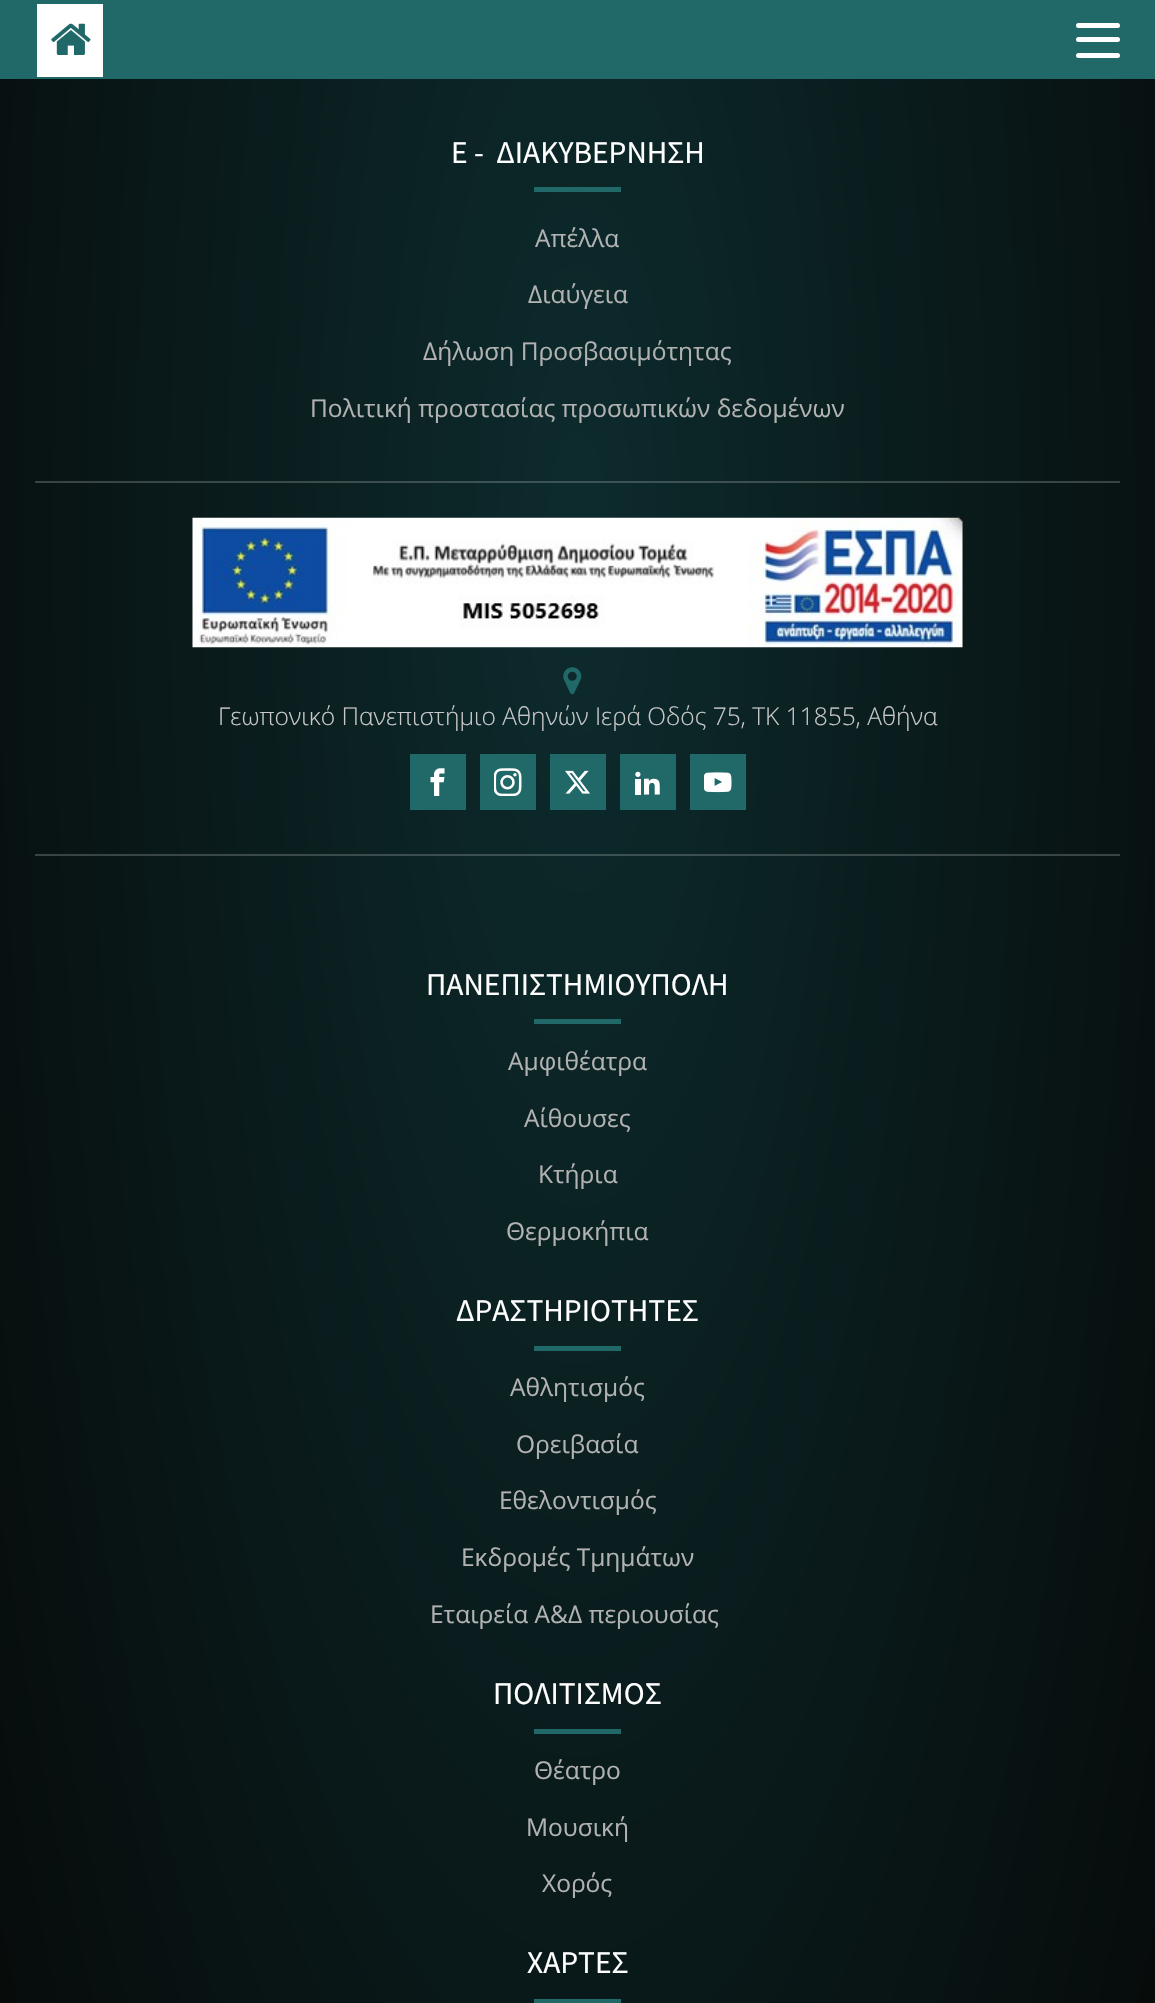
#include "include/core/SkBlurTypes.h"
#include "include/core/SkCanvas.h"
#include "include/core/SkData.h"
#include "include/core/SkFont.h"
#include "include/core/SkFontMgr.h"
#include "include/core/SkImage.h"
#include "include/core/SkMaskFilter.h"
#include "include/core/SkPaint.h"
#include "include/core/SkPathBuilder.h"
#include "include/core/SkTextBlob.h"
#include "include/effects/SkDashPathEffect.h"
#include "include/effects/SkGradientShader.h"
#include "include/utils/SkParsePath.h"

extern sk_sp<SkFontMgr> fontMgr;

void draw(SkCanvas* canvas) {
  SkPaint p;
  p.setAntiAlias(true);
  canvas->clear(SK_ColorWHITE);
  p.setColor(SkColorSetRGB(33, 104, 105));
  canvas->drawRect(SkRect::MakeLTRB(0, 0, 1155, 79), p);
  p.setColor(SK_ColorWHITE);
  canvas->drawRect(SkRect::MakeLTRB(37, 4, 103, 77), p);
  canvas->drawImageRect(SkImages::DeferredFromEncodedData(SkData::MakeFromFileName("images/1.png")), SkRect::MakeLTRB(51, 23, 91, 55), SkSamplingOptions());
  canvas->drawRoundRect(SkRect::MakeLTRB(1076, 23, 1120, 28), 2.5f, 2.5f, p);
  canvas->drawRoundRect(SkRect::MakeLTRB(1076, 37, 1120, 42), 2.5f, 2.5f, p);
  canvas->drawRoundRect(SkRect::MakeLTRB(1076, 53, 1120, 58), 2.5f, 2.5f, p);
  {
    const SkColor colors[] = {SkColorSetRGB(13, 43, 45), SkColorSetRGB(6, 7, 6)};
    const float stops[] = {0, 1};
    SkMatrix m = SkMatrix::Translate(578, 539).preScale(817, 2829);
    p.setShader(SkGradientShader::MakeRadial({0, 0}, 1, colors, stops, 2, SkTileMode::kClamp, 0, &m));
    p.setAlpha(255);
  }
  canvas->drawRect(SkRect::MakeLTRB(0, 79, 1155, 2003), p);
  {
    const SkColor colors[] = {SkColorSetRGB(61, 85, 87), SkColorSetRGB(56, 57, 56)};
    const float stops[] = {0, 1};
    SkMatrix m = SkMatrix::Translate(578, 539).preScale(817, 2829);
    p.setShader(SkGradientShader::MakeRadial({0, 0}, 1, colors, stops, 2, SkTileMode::kClamp, 0, &m));
    p.setAlpha(255);
  }
  canvas->drawRect(SkRect::MakeLTRB(35, 854, 1120, 856), p);
  canvas->drawRect(SkRect::MakeLTRB(35, 481, 1120, 483), p);
  p.setShader(nullptr);
  p.setColor(SkColorSetRGB(33, 104, 105));
  canvas->drawRect(SkRect::MakeLTRB(534, 187, 621, 192), p);
  canvas->drawImageRect(SkImages::DeferredFromEncodedData(SkData::MakeFromFileName("images/2.png")), SkRect::MakeLTRB(192, 517, 963, 648), SkSamplingOptions());
  canvas->drawImageRect(SkImages::DeferredFromEncodedData(SkData::MakeFromFileName("images/3.png")), SkRect::MakeLTRB(563, 667, 582, 695), SkSamplingOptions());
  canvas->drawRect(SkRect::MakeLTRB(410, 754, 466, 810), p);
  canvas->drawImageRect(SkImages::DeferredFromEncodedData(SkData::MakeFromFileName("images/4.png")), SkRect::MakeLTRB(430, 768, 445, 796), SkSamplingOptions());
  canvas->drawRect(SkRect::MakeLTRB(480, 754, 536, 810), p);
  canvas->drawImageRect(SkImages::DeferredFromEncodedData(SkData::MakeFromFileName("images/5.png")), SkRect::MakeLTRB(494, 768, 522, 796), SkSamplingOptions());
  canvas->drawRect(SkRect::MakeLTRB(550, 754, 606, 810), p);
  canvas->drawImageRect(SkImages::DeferredFromEncodedData(SkData::MakeFromFileName("images/6.png")), SkRect::MakeLTRB(565, 770, 590, 794), SkSamplingOptions());
  canvas->drawRect(SkRect::MakeLTRB(620, 754, 676, 810), p);
  canvas->drawImageRect(SkImages::DeferredFromEncodedData(SkData::MakeFromFileName("images/7.png")), SkRect::MakeLTRB(635, 771, 660, 795), SkSamplingOptions());
  canvas->drawRect(SkRect::MakeLTRB(690, 754, 746, 810), p);
  canvas->drawImageRect(SkImages::DeferredFromEncodedData(SkData::MakeFromFileName("images/8.png")), SkRect::MakeLTRB(704, 772, 732, 793), SkSamplingOptions());
  canvas->drawRect(SkRect::MakeLTRB(534, 1019, 621, 1024), p);
  canvas->drawRect(SkRect::MakeLTRB(534, 1346, 621, 1351), p);
  canvas->drawRect(SkRect::MakeLTRB(534, 1729, 621, 1734), p);
  canvas->drawRect(SkRect::MakeLTRB(534, 1999, 621, 2003), p);
  SkFont font1(fontMgr->matchFamilyStyle("Source Sans Pro", SkFontStyle::Normal()), 31.5f);
  font1.setSubpixel(true);
  p.setColor(SK_ColorWHITE);
  canvas->drawString("E -  ΔΙΑΚΥΒΕΡΝΗΣΗ", 451, 163, font1, p);
  SkFont font2(fontMgr->matchFamilyStyle("Open Sans", SkFontStyle::Normal()), 24.5f);
  font2.setSubpixel(true);
  p.setColor(SkColorSetRGB(178, 178, 178));
  canvas->drawString("Απέλλα", 535, 247, font2, p);
  canvas->drawString("Διαύγεια", 528, 303, font2, p);
  canvas->drawString("Δήλωση Προσβασιμότητας", 423, 360, font2, p);
  canvas->drawString("Πολιτική προστασίας προσωπικών δεδομένων", 310, 417, font2, p);
  SkFont font3(fontMgr->matchFamilyStyle("Open Sans", SkFontStyle(300, SkFontStyle::kNormal_Width, SkFontStyle::kUpright_Slant)), 24.5f);
  font3.setSubpixel(true);
  p.setColor(SkColorSetRGB(201, 201, 201));
  canvas->drawString("Γεωπονικό Πανεπιστήμιο Αθηνών Ιερά Οδός 75, ΤΚ 11855, Αθήνα", 218, 725, font3, p);
  p.setColor(SK_ColorWHITE);
  canvas->drawString("ΠΑΝΕΠΙΣΤΗΜΙΟΥΠΟΛΗ", 426, 995, font1, p);
  p.setColor(SkColorSetRGB(178, 178, 178));
  canvas->drawString("Αμφιθέατρα", 508, 1070, font2, p);
  canvas->drawString("Αίθουσες", 524, 1127, font2, p);
  canvas->drawString("Κτήρια", 538, 1183, font2, p);
  canvas->drawString("Θερμοκήπια", 506, 1240, font2, p);
  p.setColor(SK_ColorWHITE);
  canvas->drawString("ΔΡΑΣΤΗΡΙΟΤΗΤΕΣ", 456, 1321, font1, p);
  p.setColor(SkColorSetRGB(178, 178, 178));
  canvas->drawString("Αθλητισμός", 510, 1396, font2, p);
  canvas->drawString("Ορειβασία", 516, 1453, font2, p);
  canvas->drawString("Εθελοντισμός", 499, 1509, font2, p);
  canvas->drawString("Εκδρομές Τμημάτων", 461, 1566, font2, p);
  canvas->drawString("Εταιρεία Α&Δ περιουσίας", 430, 1623, font2, p);
  p.setColor(SK_ColorWHITE);
  canvas->drawString("ΠΟΛΙΤΙΣΜΟΣ", 493, 1704, font1, p);
  p.setColor(SkColorSetRGB(178, 178, 178));
  canvas->drawString("Θέατρο", 534, 1779, font2, p);
  canvas->drawString("Μουσική", 526, 1836, font2, p);
  canvas->drawString("Χορός", 542, 1892, font2, p);
  p.setColor(SK_ColorWHITE);
  canvas->drawString("ΧΑΡΤΕΣ", 527, 1973, font1, p);
}
